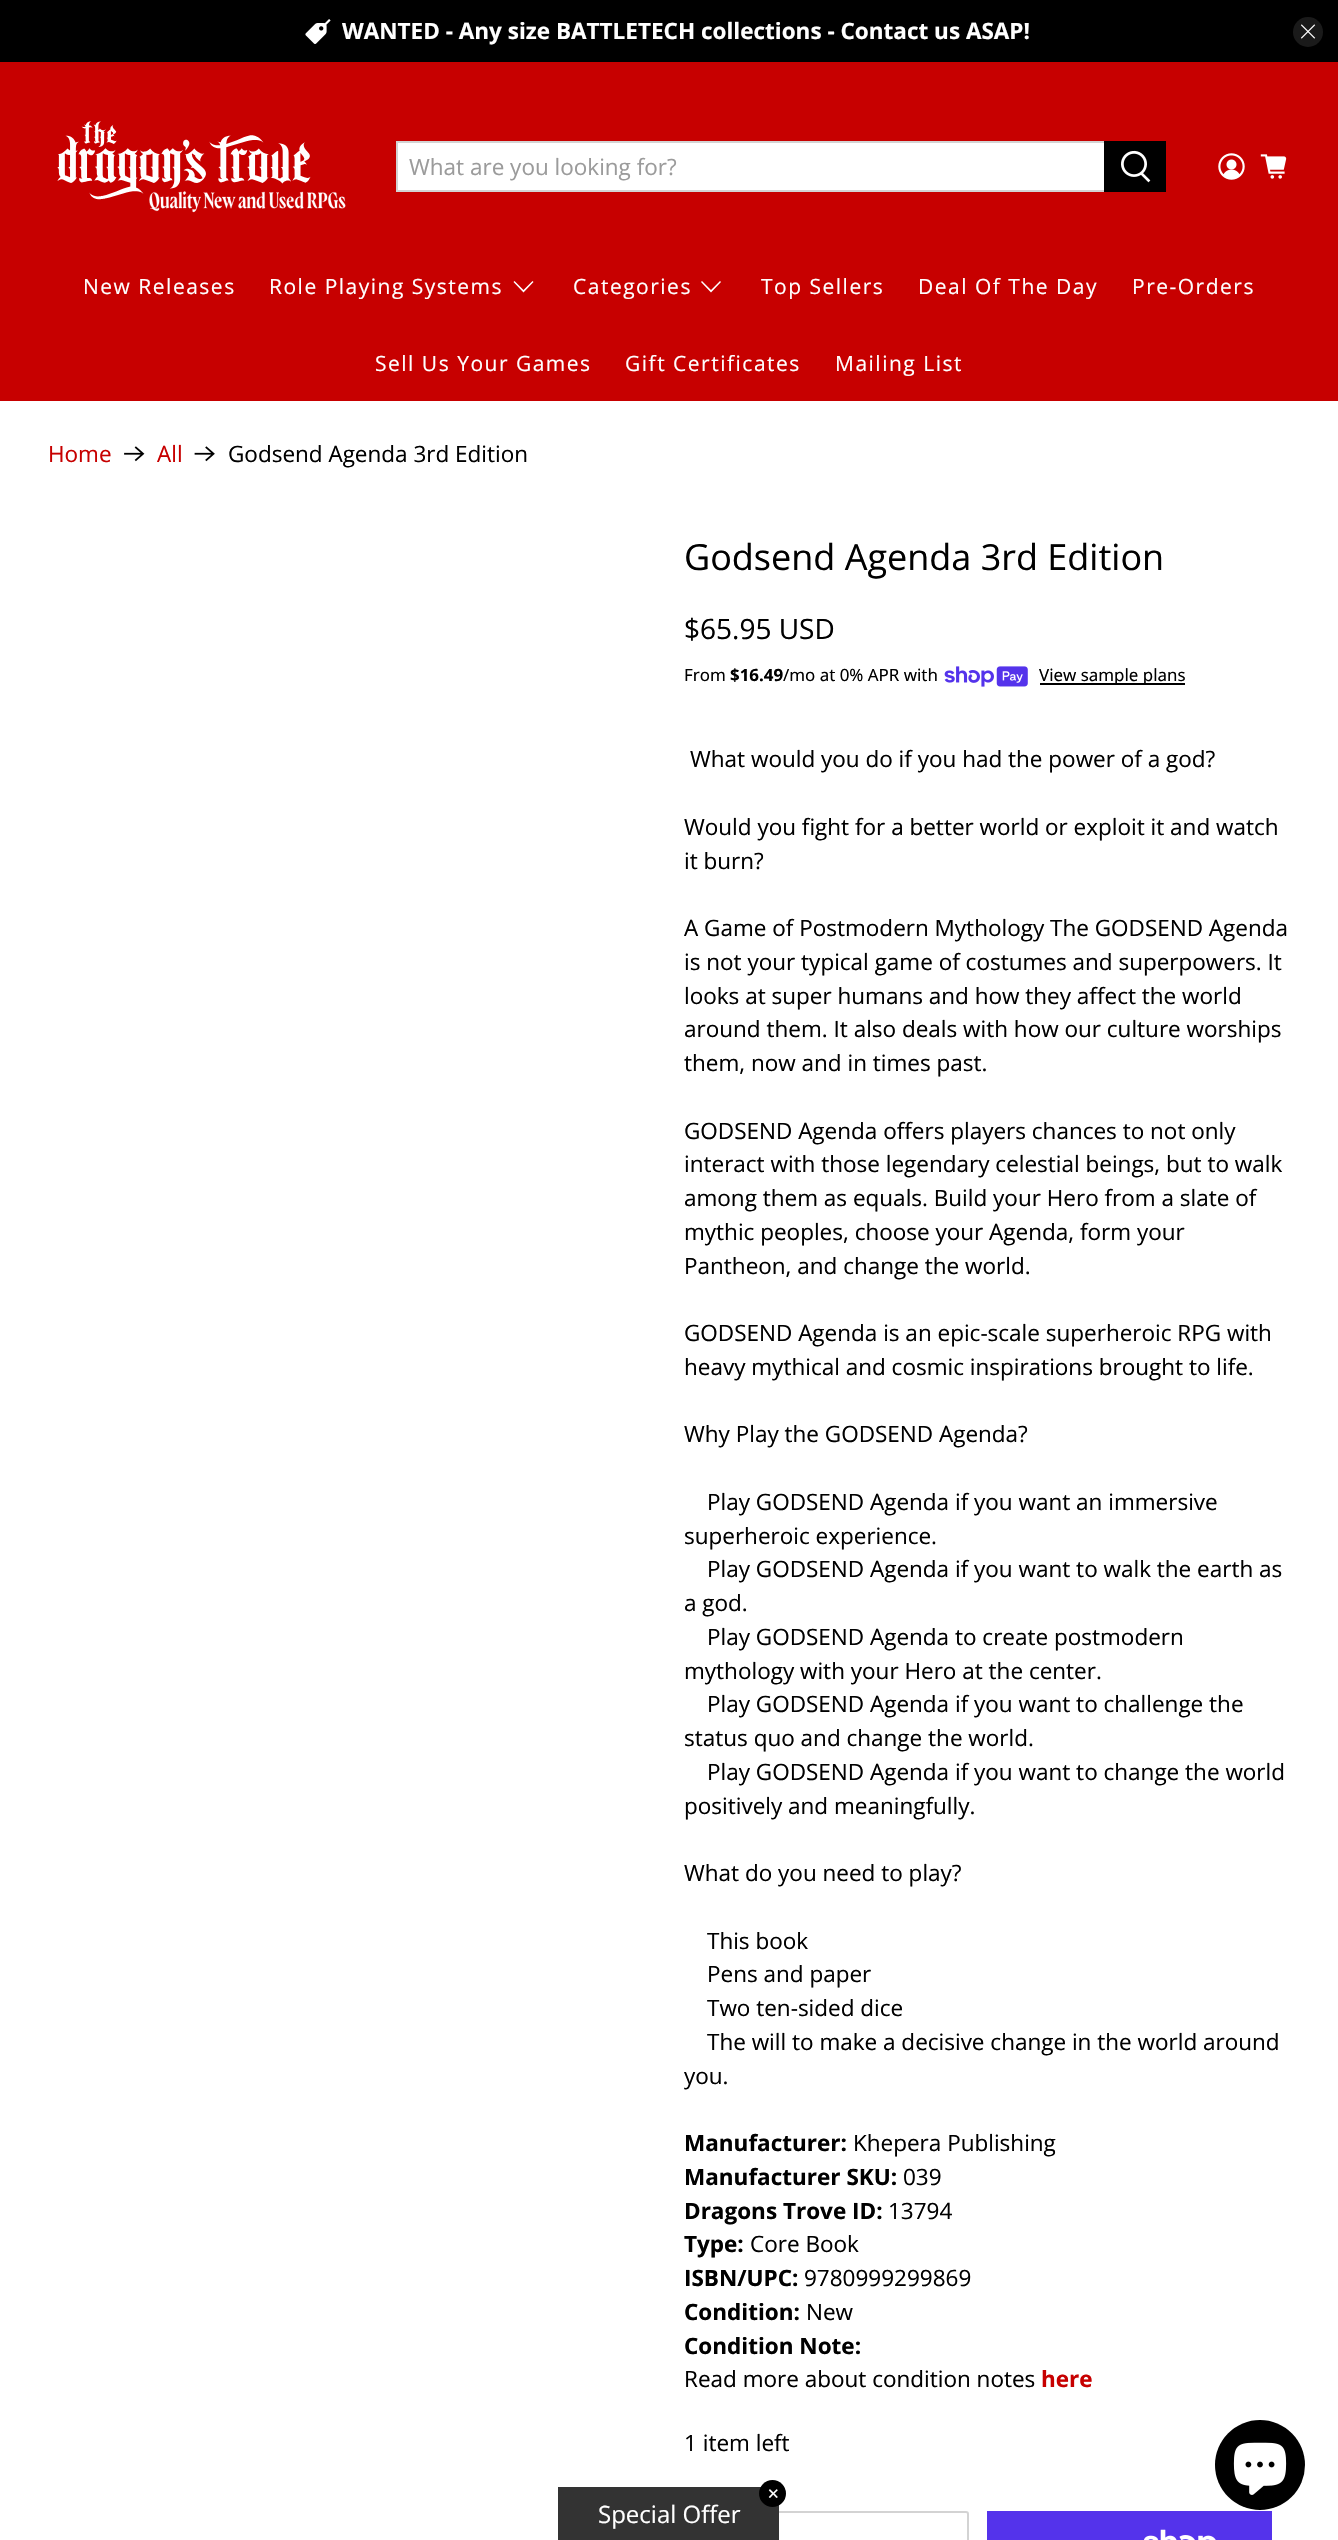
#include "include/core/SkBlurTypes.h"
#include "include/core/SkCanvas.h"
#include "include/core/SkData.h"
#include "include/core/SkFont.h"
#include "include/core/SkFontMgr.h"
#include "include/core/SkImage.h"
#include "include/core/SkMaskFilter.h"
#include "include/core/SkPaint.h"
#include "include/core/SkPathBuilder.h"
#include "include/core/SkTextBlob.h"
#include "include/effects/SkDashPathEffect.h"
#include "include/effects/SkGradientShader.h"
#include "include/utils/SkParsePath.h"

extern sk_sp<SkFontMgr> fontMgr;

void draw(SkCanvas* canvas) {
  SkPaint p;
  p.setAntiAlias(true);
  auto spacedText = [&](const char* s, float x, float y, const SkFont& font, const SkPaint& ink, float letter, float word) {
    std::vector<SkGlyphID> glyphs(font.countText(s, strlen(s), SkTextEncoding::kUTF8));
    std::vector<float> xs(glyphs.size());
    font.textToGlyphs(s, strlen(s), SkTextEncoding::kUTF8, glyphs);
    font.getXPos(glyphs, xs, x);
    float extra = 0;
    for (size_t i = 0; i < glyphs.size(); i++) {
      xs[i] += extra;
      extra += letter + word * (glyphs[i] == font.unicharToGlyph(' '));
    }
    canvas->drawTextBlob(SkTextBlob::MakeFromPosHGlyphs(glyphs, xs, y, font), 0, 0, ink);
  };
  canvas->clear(SK_ColorWHITE);
  p.setColor(SK_ColorBLACK);
  canvas->drawRect(SkRect::MakeLTRB(0, 0, 1338, 62), p);
  canvas->drawImageRect(SkImages::DeferredFromEncodedData(SkData::MakeFromFileName("images/1.png")), SkRect::MakeLTRB(305, 19, 331, 44), SkSamplingOptions());
  p.setColor(SkColorSetRGB(26, 26, 26));
  canvas->drawCircle(1308, 32, 15, p);
  canvas->drawImageRect(SkImages::DeferredFromEncodedData(SkData::MakeFromFileName("images/2.png")), SkRect::MakeLTRB(1301, 24, 1316, 39), SkSamplingOptions());
  p.setColor(SkColorSetRGB(199, 0, 0));
  canvas->drawRect(SkRect::MakeLTRB(0, 62, 1338, 401), p);
  canvas->drawImageRect(SkImages::DeferredFromEncodedData(SkData::MakeFromFileName("images/3.png")), SkRect::MakeLTRB(57, 121, 346, 213), SkSamplingOptions());
  p.setColor(SK_ColorWHITE);
  canvas->drawRect(SkRect::MakeLTRB(397, 142, 1105, 191), p);
  p.setStyle(SkPaint::kStroke_Style);
  p.setStrokeWidth(2);
  p.setColor(SkColorSetRGB(211, 211, 211));
  canvas->drawRect(SkRect::MakeLTRB(397, 142, 1105, 191), p);
  p.setStyle(SkPaint::kFill_Style);
  p.setColor(SK_ColorBLACK);
  canvas->drawRect(SkRect::MakeLTRB(1104, 141, 1166, 192), p);
  canvas->drawImageRect(SkImages::DeferredFromEncodedData(SkData::MakeFromFileName("images/4.png")), SkRect::MakeLTRB(1121, 150, 1151, 183), SkSamplingOptions());
  canvas->drawImageRect(SkImages::DeferredFromEncodedData(SkData::MakeFromFileName("images/5.png")), SkRect::MakeLTRB(1218, 153, 1245, 180), SkSamplingOptions());
  canvas->drawImageRect(SkImages::DeferredFromEncodedData(SkData::MakeFromFileName("images/6.png")), SkRect::MakeLTRB(1260, 154, 1287, 179), SkSamplingOptions());
  p.setColor(SK_ColorWHITE);
  canvas->drawPath(SkPathBuilder().moveTo(523.5f, 292.5f).lineTo(513.5f, 282).lineTo(514.5f, 281).lineTo(523.5f, 290).lineTo(532.5f, 281).lineTo(533.5f, 282).close().detach(), p);
  canvas->drawPath(SkPathBuilder().moveTo(711, 292.5f).lineTo(701, 282).lineTo(702, 281).lineTo(711, 290).lineTo(720, 281).lineTo(721, 282).close().detach(), p);
  canvas->drawImageRect(SkImages::DeferredFromEncodedData(SkData::MakeFromFileName("images/7.png")), SkRect::MakeLTRB(124, 446, 145, 462), SkSamplingOptions());
  canvas->drawImageRect(SkImages::DeferredFromEncodedData(SkData::MakeFromFileName("images/8.png")), SkRect::MakeLTRB(194, 446, 215, 462), SkSamplingOptions());
  canvas->drawImageRect(SkImages::DeferredFromEncodedData(SkData::MakeFromFileName("images/9.png")), SkRect::MakeLTRB(944, 666, 1028, 687), SkSamplingOptions());
  p.setColor(SK_ColorBLACK);
  canvas->drawRect(SkRect::MakeLTRB(1040, 683, 1185, 685), p);
  p.setStyle(SkPaint::kStroke_Style);
  p.setColor(SkColorSetRGB(211, 211, 211));
  canvas->drawRoundRect(SkRect::MakeLTRB(685, 2512, 968, 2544), 2, 2, p);
  p.setStyle(SkPaint::kFill_Style);
  p.setColor(SkColorSetRGB(84, 51, 235));
  canvas->drawRect(SkRect::MakeLTRB(987, 2511, 1272, 2540), p);
  canvas->drawImageRect(SkImages::DeferredFromEncodedData(SkData::MakeFromFileName("images/10.png")), SkRect::MakeLTRB(1144, 2529, 1216, 2540), SkSamplingOptions());
  p.setColor(SkColorSetRGB(51, 51, 51));
  canvas->drawRect(SkRect::MakeLTRB(558, 2487, 779, 2540), p);
  p.setColor(SK_ColorBLACK);
  canvas->drawCircle(772.5f, 2493.5f, 13.5f, p);
  canvas->drawCircle(1260, 2465, 45, p);
  canvas->drawImageRect(SkImages::DeferredFromEncodedData(SkData::MakeFromFileName("images/11.png")), SkRect::MakeLTRB(1233, 2442, 1287, 2495), SkSamplingOptions());
  SkFont font1(fontMgr->matchFamilyStyle("Open Sans", SkFontStyle::Bold()), 22.5f);
  font1.setSubpixel(true);
  p.setColor(SK_ColorWHITE);
  canvas->drawString("WANTED - Any size BATTLETECH collections - Contact us ASAP!", 342, 39, font1, p);
  SkFont font2(fontMgr->matchFamilyStyle("Open Sans", SkFontStyle::Normal()), 22.5f);
  font2.setSubpixel(true);
  p.setColor(SkColorSetRGB(155, 155, 155));
  canvas->drawString("What are you looking for?", 409, 175, font2, p);
  SkFont font3(fontMgr->matchFamilyStyle("Open Sans", SkFontStyle::Normal()), 21);
  font3.setSubpixel(true);
  p.setColor(SK_ColorWHITE);
  spacedText("New Releases", 83, 294, font3, p, 1.5f, 0);
  spacedText("Role Playing Systems", 269, 294, font3, p, 1.5f, 0);
  spacedText("Categories", 573, 294, font3, p, 1.5f, 0);
  spacedText("Top Sellers", 761, 294, font3, p, 1.5f, 0);
  spacedText("Deal Of The Day", 918, 294, font3, p, 1.5f, 0);
  spacedText("Pre-Orders", 1132, 294, font3, p, 1.5f, 0);
  spacedText("Sell Us Your Games", 375, 371, font3, p, 1.5f, 0);
  spacedText("Gift Certificates", 625, 371, font3, p, 1.5f, 0);
  spacedText("Mailing List", 835, 371, font3, p, 1.5f, 0);
  p.setColor(SkColorSetRGB(199, 0, 0));
  canvas->drawString("Home", 48, 462, font2, p);
  canvas->drawString("All", 157, 462, font2, p);
  p.setColor(SK_ColorBLACK);
  canvas->drawString("Godsend Agenda 3rd Edition", 228, 462, font2, p);
  SkFont font4(fontMgr->matchFamilyStyle("Open Sans", SkFontStyle::Normal()), 36);
  font4.setSubpixel(true);
  canvas->drawString("Godsend Agenda 3rd Edition", 684, 570, font4, p);
  SkFont font5(fontMgr->matchFamilyStyle("Open Sans", SkFontStyle::Normal()), 28);
  font5.setSubpixel(true);
  canvas->drawString("$65.95 USD", 684, 639, font5, p);
  SkFont font6(fontMgr->matchFamilyStyle("Noto Sans", SkFontStyle::Normal()), 16.9f);
  font6.setSubpixel(true);
  canvas->drawString("From", 684, 681, font6, p);
  SkFont font7(fontMgr->matchFamilyStyle("Noto Sans", SkFontStyle::Bold()), 16.9f);
  font7.setSubpixel(true);
  canvas->drawString("$16.49", 730, 681, font7, p);
  canvas->drawString("/mo at 0% APR with", 783, 681, font6, p);
  canvas->drawString("View sample plans", 1039, 681, font6, p);
  canvas->drawString("What would you do if you had the power of a god?", 690, 767, font2, p);
  canvas->drawString("Would you fight for a better world or exploit it and watch", 684, 835, font2, p);
  canvas->drawString("it burn?", 684, 869, font2, p);
  canvas->drawString("A Game of Postmodern Mythology The GODSEND Agenda", 684, 936, font2, p);
  canvas->drawString("is not your typical game of costumes and superpowers. It", 684, 970, font2, p);
  canvas->drawString("looks at super humans and how they affect the world", 684, 1004, font2, p);
  canvas->drawString("around them. It also deals with how our culture worships", 684, 1037, font2, p);
  canvas->drawString("them, now and in times past.", 684, 1071, font2, p);
  canvas->drawString("GODSEND Agenda offers players chances to not only", 684, 1139, font2, p);
  canvas->drawString("interact with those legendary celestial beings, but to walk", 684, 1172, font2, p);
  canvas->drawString("among them as equals. Build your Hero from a slate of", 684, 1206, font2, p);
  canvas->drawString("mythic peoples, choose your Agenda, form your", 684, 1240, font2, p);
  canvas->drawString("Pantheon, and change the world.", 684, 1274, font2, p);
  canvas->drawString("GODSEND Agenda is an epic-scale superheroic RPG with", 684, 1341, font2, p);
  canvas->drawString("heavy mythical and cosmic inspirations brought to life.", 684, 1375, font2, p);
  canvas->drawString("Why Play the GODSEND Agenda?", 684, 1442, font2, p);
  canvas->drawString("Play GODSEND Agenda if you want an immersive", 707, 1510, font2, p);
  canvas->drawString("superheroic experience.", 684, 1544, font2, p);
  canvas->drawString("Play GODSEND Agenda if you want to walk the earth as", 707, 1577, font2, p);
  canvas->drawString("a god.", 684, 1611, font2, p);
  canvas->drawString("Play GODSEND Agenda to create postmodern", 707, 1645, font2, p);
  canvas->drawString("mythology with your Hero at the center.", 684, 1679, font2, p);
  canvas->drawString("Play GODSEND Agenda if you want to challenge the", 707, 1712, font2, p);
  canvas->drawString("status quo and change the world.", 684, 1746, font2, p);
  canvas->drawString("Play GODSEND Agenda if you want to change the world", 707, 1780, font2, p);
  canvas->drawString("positively and meaningfully.", 684, 1814, font2, p);
  canvas->drawString("What do you need to play?", 684, 1881, font2, p);
  canvas->drawString("This book", 707, 1949, font2, p);
  canvas->drawString("Pens and paper", 707, 1982, font2, p);
  canvas->drawString("Two ten-sided dice", 707, 2016, font2, p);
  canvas->drawString("The will to make a decisive change in the world around", 707, 2050, font2, p);
  canvas->drawString("you.", 684, 2084, font2, p);
  canvas->drawString("Manufacturer:", 684, 2151, font1, p);
  canvas->drawString("Khepera Publishing", 853, 2151, font2, p);
  canvas->drawString("Manufacturer SKU:", 684, 2185, font1, p);
  canvas->drawString("039", 903, 2185, font2, p);
  canvas->drawString("Dragons Trove ID:", 684, 2219, font1, p);
  canvas->drawString("13794", 888, 2219, font2, p);
  canvas->drawString("Type:", 684, 2252, font1, p);
  canvas->drawString("Core Book", 750, 2252, font2, p);
  canvas->drawString("ISBN/UPC:", 684, 2286, font1, p);
  canvas->drawString("9780999299869", 804, 2286, font2, p);
  canvas->drawString("Condition:", 684, 2320, font1, p);
  canvas->drawString("New", 806, 2320, font2, p);
  canvas->drawString("Condition Note:", 684, 2354, font1, p);
  canvas->drawString("Read more about condition notes", 684, 2387, font2, p);
  p.setColor(SkColorSetRGB(199, 0, 0));
  canvas->drawString("here", 1041, 2387, font1, p);
  p.setColor(SK_ColorBLACK);
  canvas->drawString("1 item left", 684, 2451, font2, p);
  SkFont font8(fontMgr->matchFamilyStyle("DejaVu Sans", SkFontStyle::Normal()), 15);
  font8.setSubpixel(true);
  p.setColor(SK_ColorWHITE);
  canvas->drawString("✕", 767, 2499, font8, p);
  SkFont font9(fontMgr->matchFamilyStyle("Open Sans", SkFontStyle::Normal()), 24);
  font9.setSubpixel(true);
  canvas->drawString("Special Offer", 598, 2523, font9, p);
}
